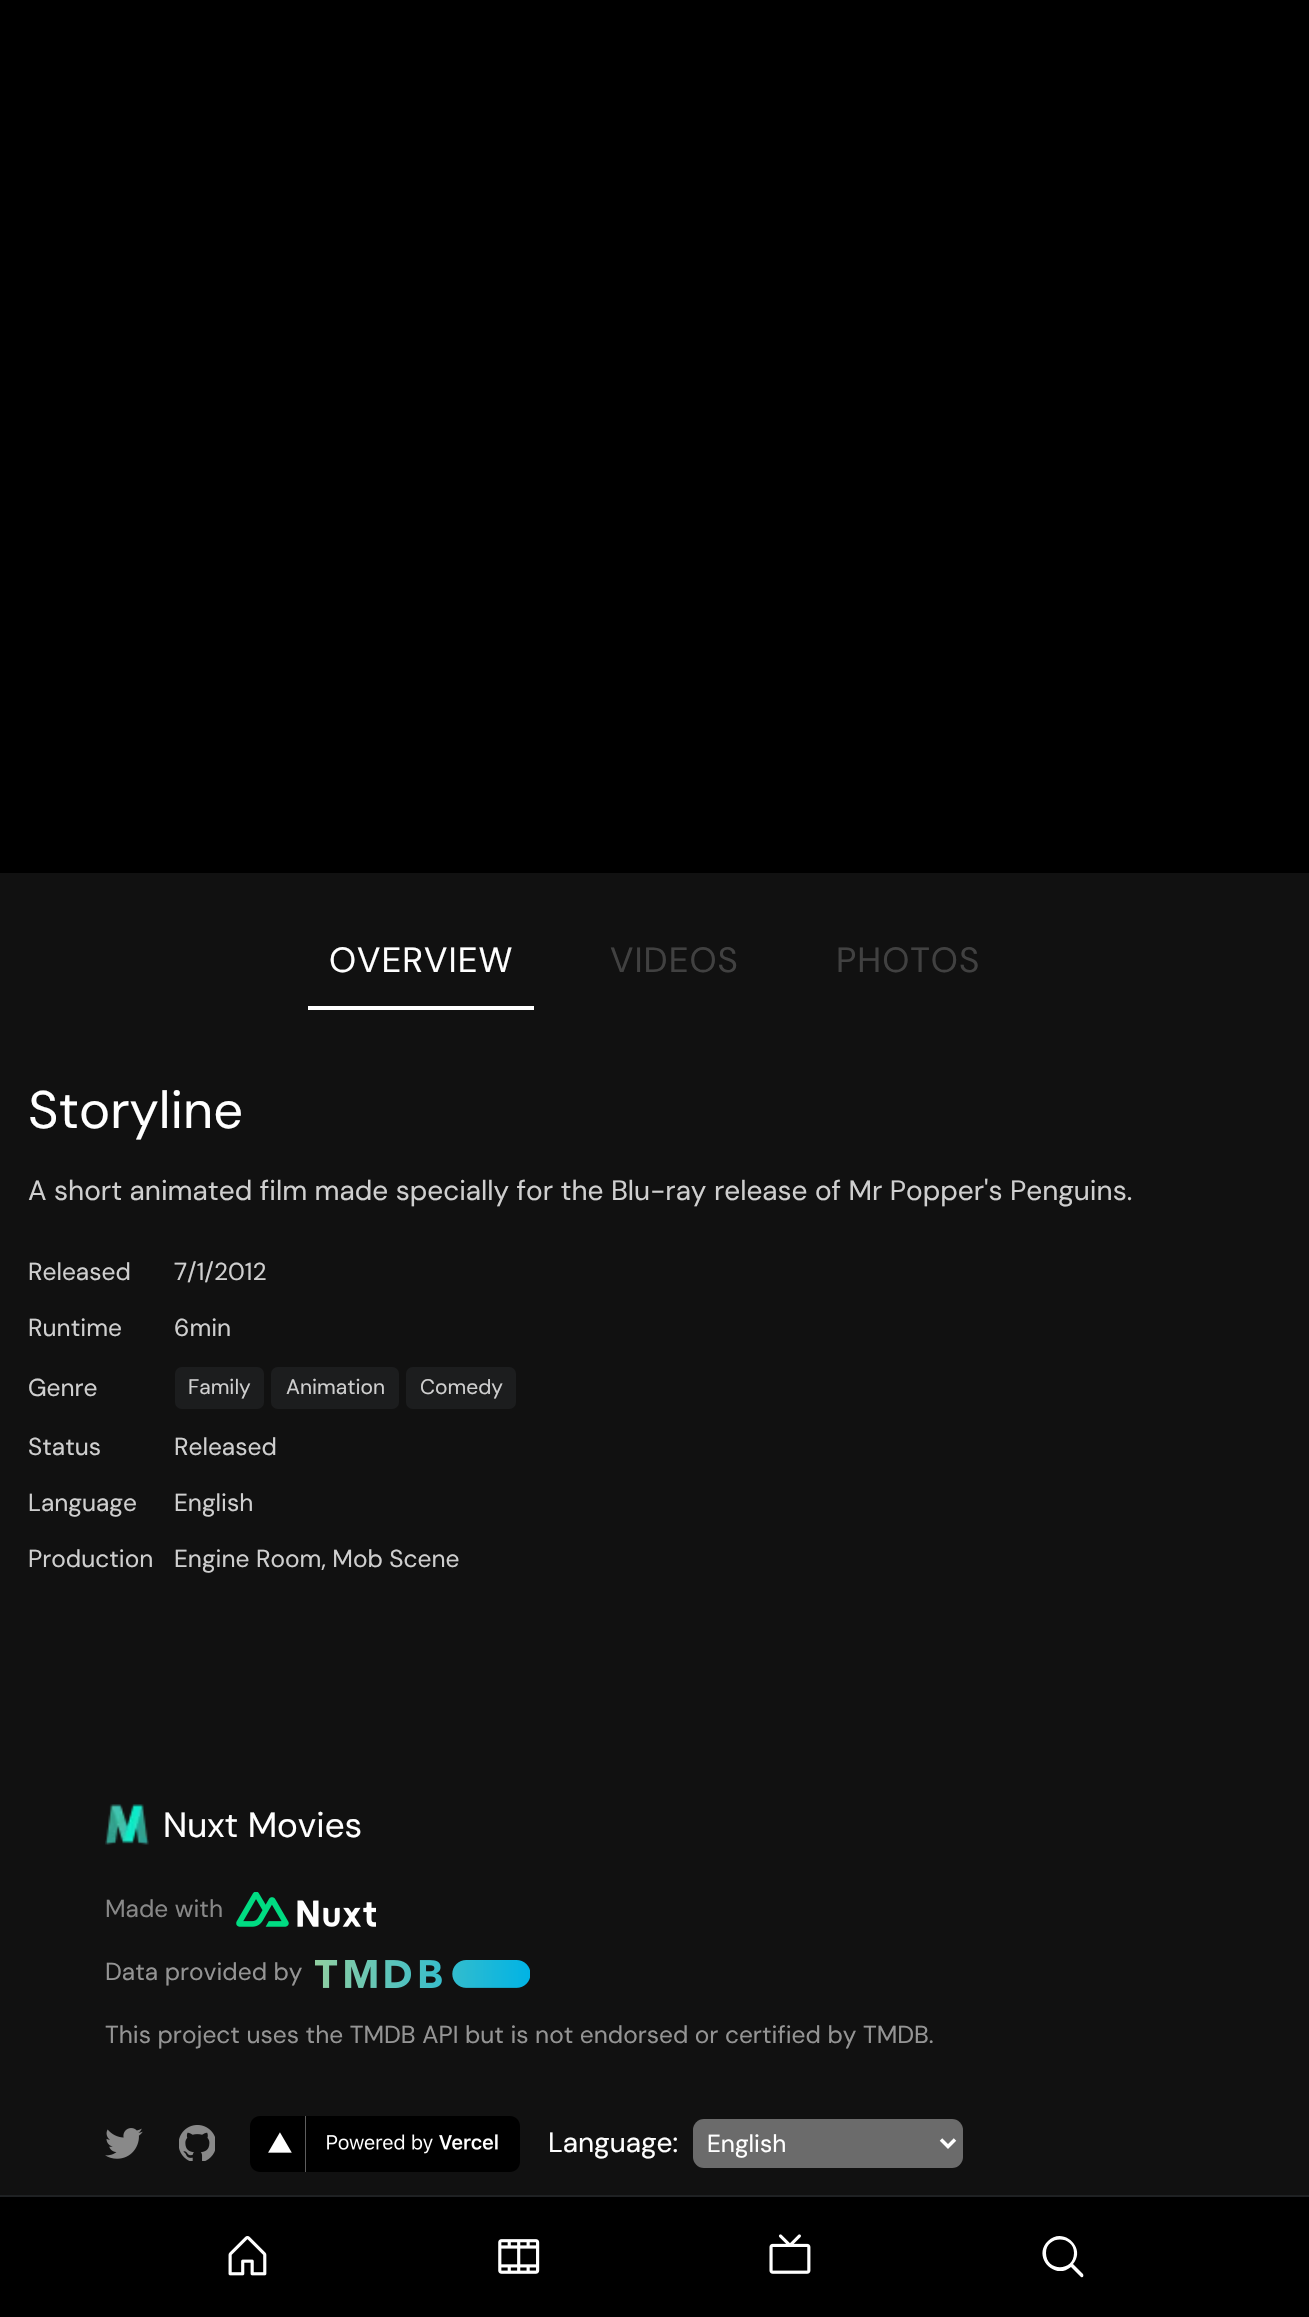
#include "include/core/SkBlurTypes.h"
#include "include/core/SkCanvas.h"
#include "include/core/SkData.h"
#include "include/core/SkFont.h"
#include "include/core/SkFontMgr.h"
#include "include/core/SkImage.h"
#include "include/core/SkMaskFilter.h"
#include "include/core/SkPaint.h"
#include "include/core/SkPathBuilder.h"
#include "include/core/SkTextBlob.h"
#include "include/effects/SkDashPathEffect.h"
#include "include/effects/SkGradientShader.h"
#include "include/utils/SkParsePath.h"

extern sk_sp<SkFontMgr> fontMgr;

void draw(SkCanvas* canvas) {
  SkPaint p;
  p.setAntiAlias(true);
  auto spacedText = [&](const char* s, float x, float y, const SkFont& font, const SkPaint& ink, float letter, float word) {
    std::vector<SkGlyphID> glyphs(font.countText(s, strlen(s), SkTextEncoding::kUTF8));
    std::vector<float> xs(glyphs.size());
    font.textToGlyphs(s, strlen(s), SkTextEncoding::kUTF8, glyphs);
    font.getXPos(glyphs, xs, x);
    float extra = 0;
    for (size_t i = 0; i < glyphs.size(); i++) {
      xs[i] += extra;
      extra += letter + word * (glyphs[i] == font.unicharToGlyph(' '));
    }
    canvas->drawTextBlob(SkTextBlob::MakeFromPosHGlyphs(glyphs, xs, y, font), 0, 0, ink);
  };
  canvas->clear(SkColorSetRGB(17, 17, 17));
  p.setColor(SK_ColorBLACK);
  canvas->drawRect(SkRect::MakeLTRB(0, 0, 1309, 873), p);
  p.setColor(SK_ColorWHITE);
  canvas->drawRect(SkRect::MakeLTRB(308, 1006, 534, 1010), p);
  p.setColor(SkColorSetRGB(28, 29, 30));
  canvas->drawRoundRect(SkRect::MakeLTRB(175, 1367, 264, 1409), 7, 7, p);
  canvas->drawRoundRect(SkRect::MakeLTRB(271, 1367, 399, 1409), 7, 7, p);
  canvas->drawRoundRect(SkRect::MakeLTRB(406, 1367, 516, 1409), 7, 7, p);
  canvas->drawImageRect(SkImages::DeferredFromEncodedData(SkData::MakeFromFileName("images/1.png")), SkRect::MakeLTRB(105, 1804, 149, 1845), SkSamplingOptions());
  canvas->drawImageRect(SkImages::DeferredFromEncodedData(SkData::MakeFromFileName("images/2.png")), SkRect::MakeLTRB(236, 1892, 376, 1927), SkSamplingOptions());
  canvas->drawImageRect(SkImages::DeferredFromEncodedData(SkData::MakeFromFileName("images/3.png")), SkRect::MakeLTRB(315, 1960, 530, 1988), SkSamplingOptions());
  canvas->drawImageRect(SkImages::DeferredFromEncodedData(SkData::MakeFromFileName("images/4.png")), SkRect::MakeLTRB(105, 2128, 143, 2159), SkSamplingOptions());
  canvas->drawImageRect(SkImages::DeferredFromEncodedData(SkData::MakeFromFileName("images/5.png")), SkRect::MakeLTRB(179, 2125, 215, 2161), SkSamplingOptions());
  canvas->drawImageRect(SkImages::DeferredFromEncodedData(SkData::MakeFromFileName("images/6.png")), SkRect::MakeLTRB(250, 2116, 520, 2172), SkSamplingOptions());
  p.setColor(SkColorSetRGB(107, 107, 107));
  canvas->drawRoundRect(SkRect::MakeLTRB(693, 2119, 963, 2168), 11, 11, p);
  p.setStyle(SkPaint::kStroke_Style);
  p.setStrokeWidth(3.5f);
  p.setColor(SK_ColorWHITE);
  canvas->drawPath(SkPathBuilder().moveTo(941, 2139.5f).lineTo(948, 2146.5f).lineTo(955, 2139.5f).detach(), p);
  p.setStyle(SkPaint::kFill_Style);
  p.setColor(SK_ColorBLACK);
  canvas->drawRect(SkRect::MakeLTRB(0, 2197, 1309, 2317), p);
  p.setColor(SkColorSetRGB(31, 33, 35));
  canvas->drawRect(SkRect::MakeLTRB(0, 2195, 1309, 2197), p);
  canvas->drawImageRect(SkImages::DeferredFromEncodedData(SkData::MakeFromFileName("images/7.png")), SkRect::MakeLTRB(228, 2236, 267, 2276), SkSamplingOptions());
  canvas->drawImageRect(SkImages::DeferredFromEncodedData(SkData::MakeFromFileName("images/8.png")), SkRect::MakeLTRB(498, 2239, 540, 2274), SkSamplingOptions());
  canvas->drawImageRect(SkImages::DeferredFromEncodedData(SkData::MakeFromFileName("images/9.png")), SkRect::MakeLTRB(769, 2234, 811, 2274), SkSamplingOptions());
  p.setColor(SK_ColorWHITE);
  canvas->drawPath(SkPathBuilder().moveTo(1083, 2274).lineTo(1073, 2264).cubicTo(1087, 2248, 1063, 2226, 1048, 2241).cubicTo(1032, 2256, 1054, 2281, 1071, 2267).lineTo(1081, 2277).cubicTo(1083, 2278, 1084, 2276, 1083, 2274).moveTo(1046, 2253).cubicTo(1046, 2235, 1074, 2235, 1074, 2253).cubicTo(1074, 2272, 1046, 2272, 1046, 2253).detach(), p);
  SkFont font1(fontMgr->matchFamilyStyle("DM Sans", SkFontStyle::Normal()), 35);
  font1.setSubpixel(true);
  spacedText("OVERVIEW", 329, 972, font1, p, 1, 0);
  p.setColor(SkColorSetRGB(65, 65, 65));
  spacedText("VIDEOS", 610, 972, font1, p, 1, 0);
  spacedText("PHOTOS", 836, 972, font1, p, 1, 0);
  SkFont font2(fontMgr->matchFamilyStyle("DM Sans", SkFontStyle::Normal()), 52.5f);
  font2.setSubpixel(true);
  p.setColor(SK_ColorWHITE);
  canvas->drawString("Storyline", 28, 1128, font2, p);
  SkFont font3(fontMgr->matchFamilyStyle("DM Sans", SkFontStyle::Normal()), 28);
  font3.setSubpixel(true);
  p.setColor(SkColorSetRGB(207, 207, 207));
  canvas->drawString("A short animated film made specially for the Blu-ray release of Mr Popper's Penguins.", 28, 1200, font3, p);
  SkFont font4(fontMgr->matchFamilyStyle("DM Sans", SkFontStyle::Normal()), 24.5f);
  font4.setSubpixel(true);
  canvas->drawString("Released", 28, 1280, font4, p);
  canvas->drawString("7/1/2012", 174, 1280, font4, p);
  canvas->drawString("Runtime", 28, 1336, font4, p);
  canvas->drawString("6min", 174, 1336, font4, p);
  canvas->drawString("Genre", 28, 1396, font4, p);
  SkFont font5(fontMgr->matchFamilyStyle("DM Sans", SkFontStyle::Normal()), 21);
  font5.setSubpixel(true);
  canvas->drawString("Family", 188, 1394, font5, p);
  canvas->drawString("Animation", 286, 1394, font5, p);
  canvas->drawString("Comedy", 420, 1394, font5, p);
  canvas->drawString("Status", 28, 1455, font4, p);
  canvas->drawString("Released", 174, 1455, font4, p);
  canvas->drawString("Language", 28, 1511, font4, p);
  canvas->drawString("English", 174, 1511, font4, p);
  canvas->drawString("Production", 28, 1567, font4, p);
  canvas->drawString("Engine Room, Mob Scene", 174, 1567, font4, p);
  p.setColor(SK_ColorWHITE);
  canvas->drawString("Nuxt Movies", 163, 1837, font1, p);
  p.setColor(SkColorSetRGB(136, 136, 136));
  canvas->drawString("Made with", 105, 1917, font4, p);
  p.setColor(SkColorSetRGB(148, 148, 148));
  canvas->drawString("Data provided by", 105, 1980, font4, p);
  canvas->drawString("This project uses the TMDB API but is not endorsed or certified by TMDB.", 105, 2043, font4, p);
  p.setColor(SK_ColorWHITE);
  canvas->drawString("Language:", 548, 2152, font3, p);
  canvas->drawString("English", 707, 2152, font4, p);
}
